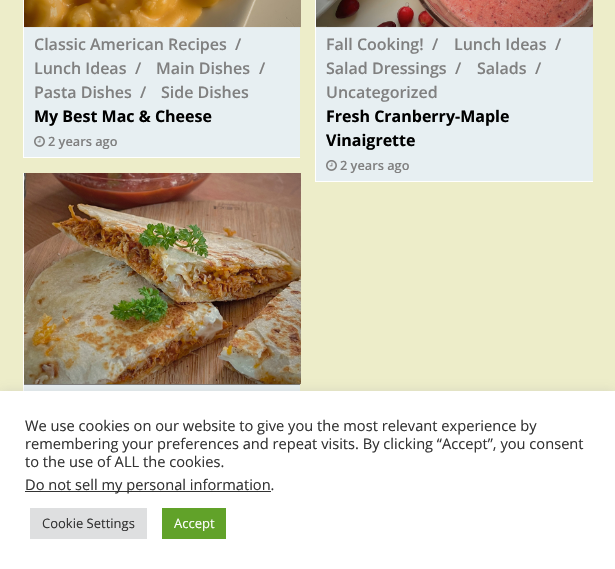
#include "include/core/SkBlurTypes.h"
#include "include/core/SkCanvas.h"
#include "include/core/SkData.h"
#include "include/core/SkFont.h"
#include "include/core/SkFontMgr.h"
#include "include/core/SkImage.h"
#include "include/core/SkMaskFilter.h"
#include "include/core/SkPaint.h"
#include "include/core/SkPathBuilder.h"
#include "include/core/SkTextBlob.h"
#include "include/effects/SkDashPathEffect.h"
#include "include/effects/SkGradientShader.h"
#include "include/utils/SkParsePath.h"

extern sk_sp<SkFontMgr> fontMgr;

void draw(SkCanvas* canvas) {
  SkPaint p;
  p.setAntiAlias(true);
  canvas->clear(SkColorSetRGB(237, 237, 201));
  p.setColor(SK_ColorWHITE);
  canvas->drawRect(SkRect::MakeLTRB(23, 157, 300, 158), p);
  canvas->drawRect(SkRect::MakeLTRB(23, 0, 24, 158), p);
  p.setColor(SkColorSetRGB(231, 239, 242));
  canvas->drawRect(SkRect::MakeLTRB(24, 27, 300, 157), p);
  canvas->drawImageRect(SkImages::DeferredFromEncodedData(SkData::MakeFromFileName("images/1.png")), SkRect::MakeLTRB(24, 0, 301, 28), SkSamplingOptions());
  canvas->drawImageRect(SkImages::DeferredFromEncodedData(SkData::MakeFromFileName("images/2.png")), SkRect::MakeLTRB(24, 0, 301, 27), SkSamplingOptions());
  canvas->drawImageRect(SkImages::DeferredFromEncodedData(SkData::MakeFromFileName("images/3.png")), SkRect::MakeLTRB(34, 136, 45, 147), SkSamplingOptions());
  p.setColor(SK_ColorWHITE);
  canvas->drawRect(SkRect::MakeLTRB(315, 181, 593, 182), p);
  canvas->drawRect(SkRect::MakeLTRB(315, 0, 316, 182), p);
  p.setColor(SkColorSetRGB(231, 239, 242));
  canvas->drawRect(SkRect::MakeLTRB(316, 27, 593, 181), p);
  canvas->drawImageRect(SkImages::DeferredFromEncodedData(SkData::MakeFromFileName("images/4.png")), SkRect::MakeLTRB(316, 0, 593, 28), SkSamplingOptions());
  canvas->drawImageRect(SkImages::DeferredFromEncodedData(SkData::MakeFromFileName("images/5.png")), SkRect::MakeLTRB(327, 0, 593, 27), SkSamplingOptions());
  canvas->drawImageRect(SkImages::DeferredFromEncodedData(SkData::MakeFromFileName("images/3.png")), SkRect::MakeLTRB(326, 160, 337, 171), SkSamplingOptions());
  p.setColor(SK_ColorWHITE);
  canvas->drawRect(SkRect::MakeLTRB(23, 173, 24, 391), p);
  p.setColor(SkColorSetRGB(123, 123, 123));
  canvas->drawRect(SkRect::MakeLTRB(24, 384, 300, 385), p);
  canvas->drawImageRect(SkImages::DeferredFromEncodedData(SkData::MakeFromFileName("images/6.png")), SkRect::MakeLTRB(24, 173, 301, 385), SkSamplingOptions());
  canvas->drawImageRect(SkImages::DeferredFromEncodedData(SkData::MakeFromFileName("images/7.png")), SkRect::MakeLTRB(24, 173, 301, 384), SkSamplingOptions());
  p.setColor(SkColorSetRGB(231, 239, 242));
  canvas->drawRect(SkRect::MakeLTRB(24, 385, 300, 391), p);
  p.setColor(SkColorSetARGB(77, 172, 171, 171));
  p.setMaskFilter(SkMaskFilter::MakeBlur(kNormal_SkBlurStyle, 5));
  canvas->drawRect(SkRect::MakeLTRB(0, 390, 615, 568), p);
  p.setMaskFilter(nullptr);
  p.setColor(SK_ColorWHITE);
  canvas->drawRect(SkRect::MakeLTRB(0, 391, 615, 569), p);
  p.setColor(SkColorSetRGB(51, 51, 51));
  canvas->drawRect(SkRect::MakeLTRB(25, 491, 271, 492), p);
  p.setColor(SkColorSetRGB(222, 223, 224));
  canvas->drawRect(SkRect::MakeLTRB(30, 508, 147, 539), p);
  p.setColor(SkColorSetRGB(97, 162, 41));
  canvas->drawRect(SkRect::MakeLTRB(162, 508, 226, 539), p);
  SkFont font1(fontMgr->matchFamilyStyle("Open Sans", SkFontStyle(600, SkFontStyle::kNormal_Width, SkFontStyle::kUpright_Slant)), 16);
  font1.setSubpixel(true);
  p.setColor(SkColorSetRGB(128, 128, 128));
  canvas->drawString("Classic American Recipes", 34, 50, font1, p);
  canvas->drawString("/", 235, 50, font1, p);
  canvas->drawString("Lunch Ideas", 34, 74, font1, p);
  canvas->drawString("/", 135, 74, font1, p);
  canvas->drawString("Main Dishes", 156, 74, font1, p);
  canvas->drawString("/", 259, 74, font1, p);
  canvas->drawString("Pasta Dishes", 34, 98, font1, p);
  canvas->drawString("/", 140, 98, font1, p);
  canvas->drawString("Side Dishes", 161, 98, font1, p);
  SkFont font2(fontMgr->matchFamilyStyle("Open Sans", SkFontStyle::Bold()), 16);
  font2.setSubpixel(true);
  p.setColor(SK_ColorBLACK);
  canvas->drawString("My Best Mac & Cheese", 34, 122, font2, p);
  SkFont font3(fontMgr->matchFamilyStyle("Open Sans", SkFontStyle(600, SkFontStyle::kNormal_Width, SkFontStyle::kUpright_Slant)), 12.75f);
  font3.setSubpixel(true);
  p.setColor(SkColorSetRGB(128, 128, 128));
  canvas->drawString("2 years ago", 48, 146, font3, p);
  canvas->drawString("Fall Cooking!", 326, 50, font1, p);
  canvas->drawString("/", 432, 50, font1, p);
  canvas->drawString("Lunch Ideas", 454, 50, font1, p);
  canvas->drawString("/", 555, 50, font1, p);
  canvas->drawString("Salad Dressings", 326, 74, font1, p);
  canvas->drawString("/", 455, 74, font1, p);
  canvas->drawString("Salads", 477, 74, font1, p);
  canvas->drawString("/", 535, 74, font1, p);
  canvas->drawString("Uncategorized", 326, 98, font1, p);
  p.setColor(SK_ColorBLACK);
  canvas->drawString("Fresh Cranberry-Maple", 326, 122, font2, p);
  canvas->drawString("Vinaigrette", 326, 146, font2, p);
  p.setColor(SkColorSetRGB(128, 128, 128));
  canvas->drawString("2 years ago", 340, 170, font3, p);
  SkFont font4(fontMgr->matchFamilyStyle("Open Sans", SkFontStyle::Normal()), 14.65f);
  font4.setSubpixel(true);
  p.setColor(SkColorSetRGB(51, 51, 51));
  canvas->drawString("We use cookies on our website to give you the most relevant experience by", 25, 431, font4, p);
  canvas->drawString("remembering your preferences and repeat visits. By clicking “Accept”, you consent", 25, 449, font4, p);
  canvas->drawString("to the use of ALL the cookies.", 25, 467, font4, p);
  canvas->drawString("Do not sell my personal information.", 25, 490, font4, p);
  SkFont font5(fontMgr->matchFamilyStyle("Open Sans", SkFontStyle::Normal()), 13);
  font5.setSubpixel(true);
  canvas->drawString("Cookie Settings", 42, 528, font5, p);
  p.setColor(SK_ColorWHITE);
  canvas->drawString("Accept", 174, 528, font5, p);
}
